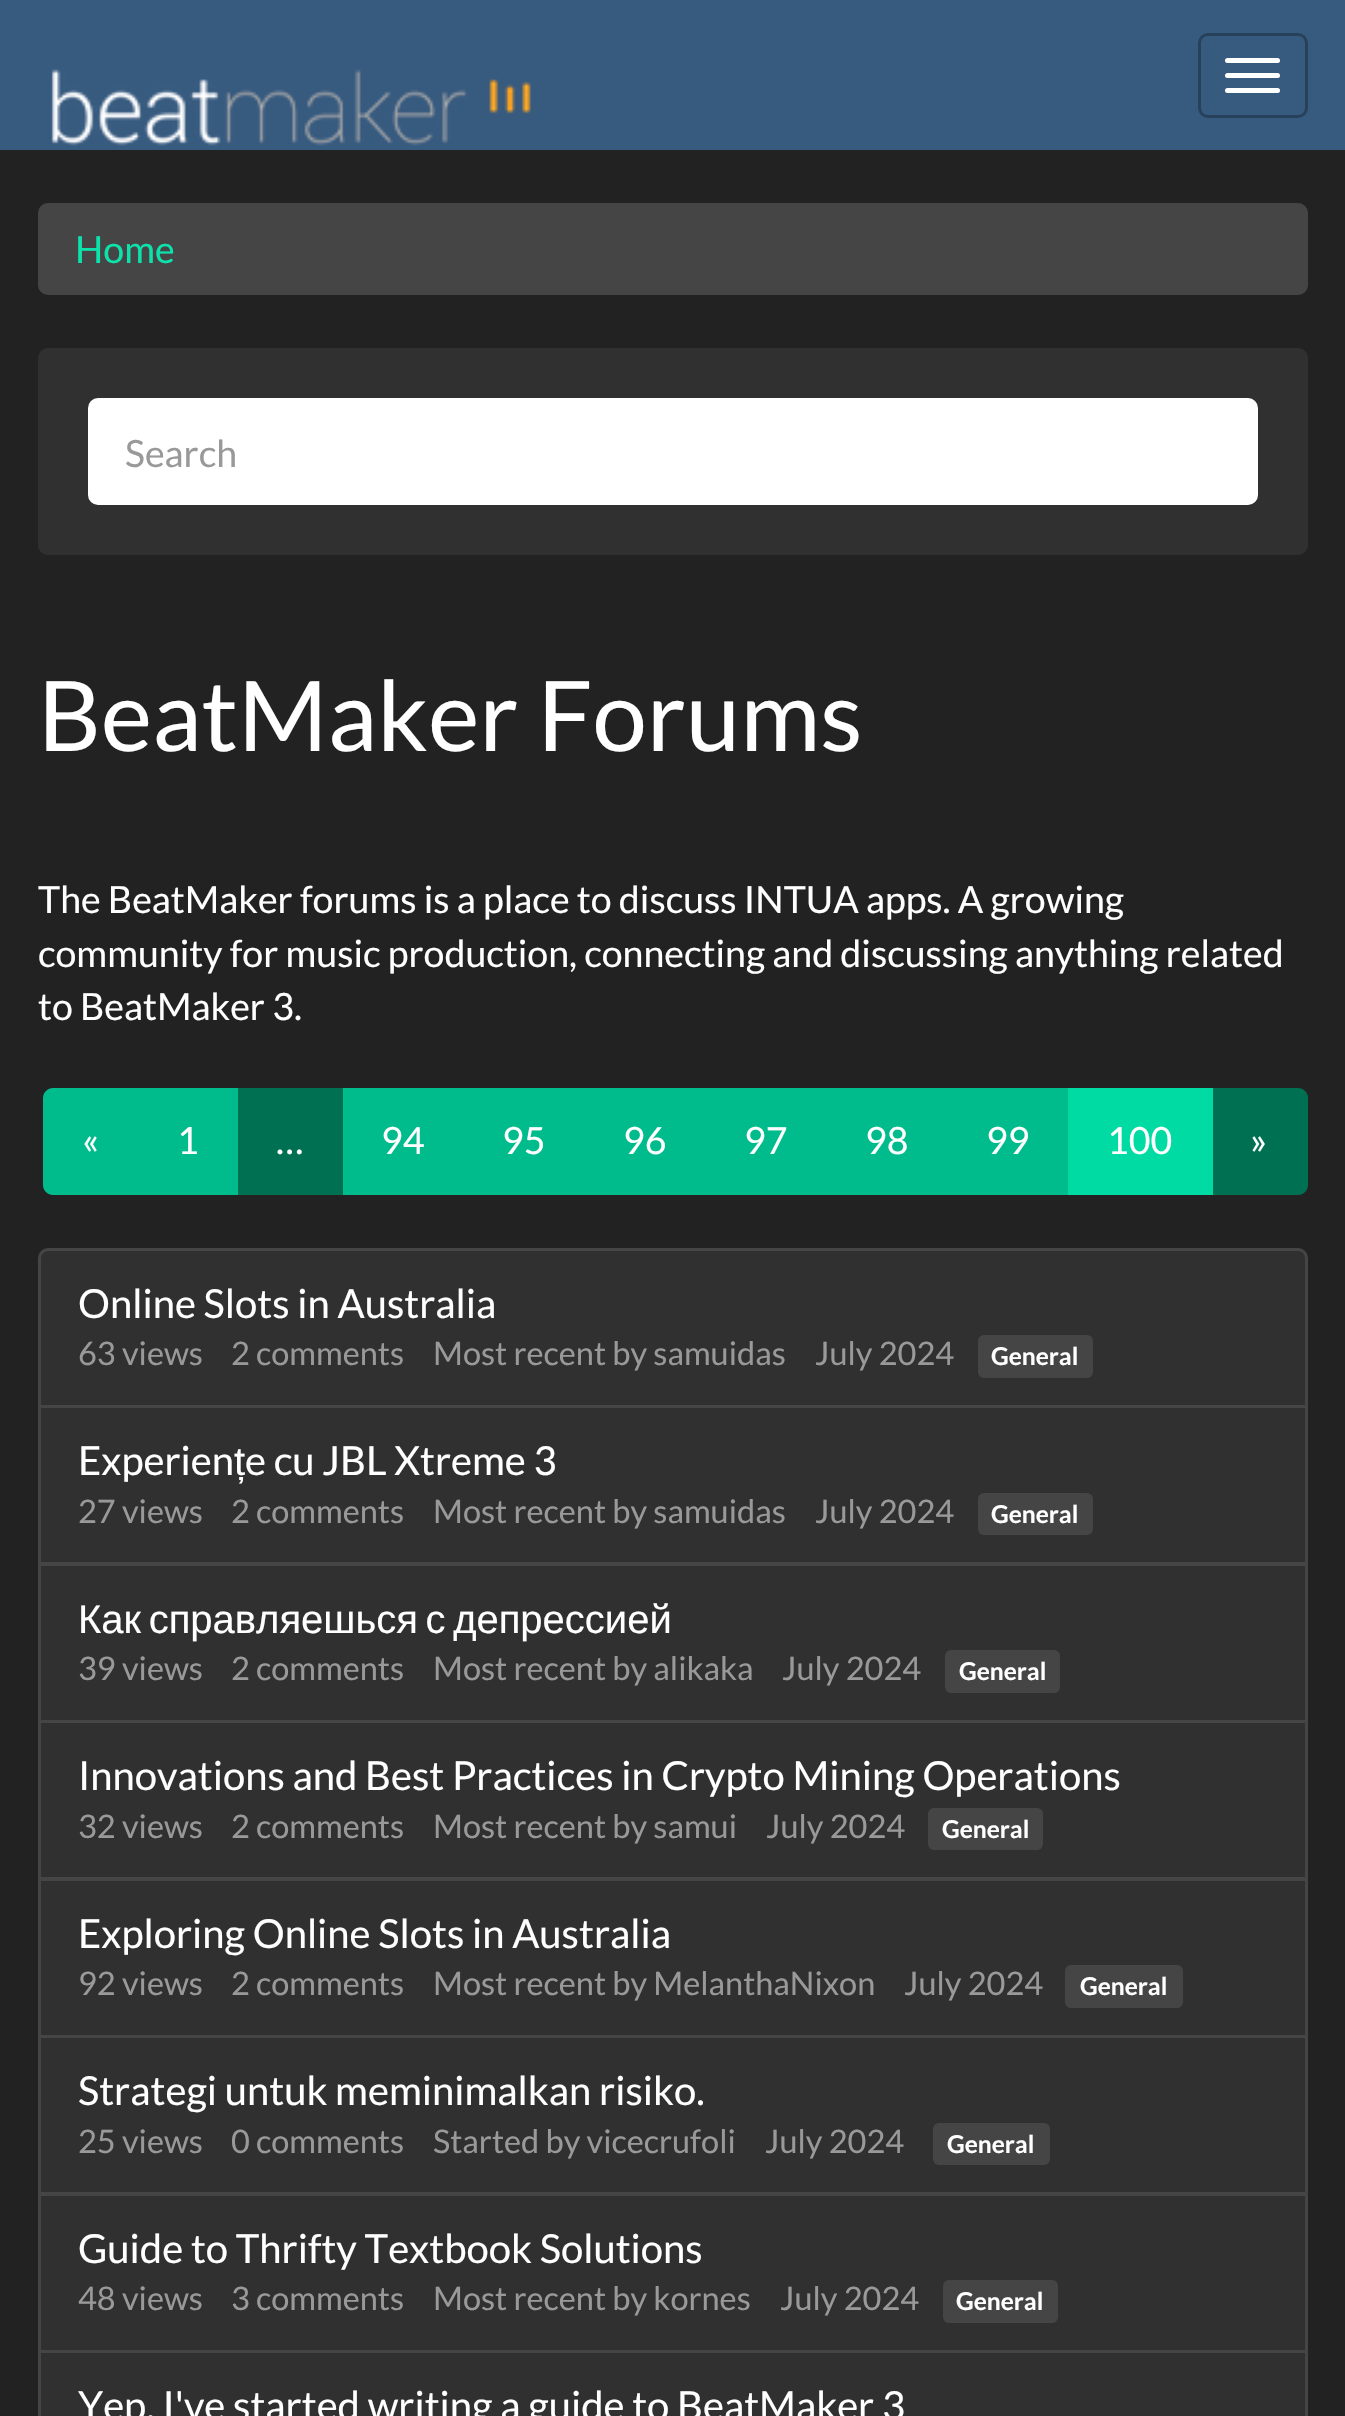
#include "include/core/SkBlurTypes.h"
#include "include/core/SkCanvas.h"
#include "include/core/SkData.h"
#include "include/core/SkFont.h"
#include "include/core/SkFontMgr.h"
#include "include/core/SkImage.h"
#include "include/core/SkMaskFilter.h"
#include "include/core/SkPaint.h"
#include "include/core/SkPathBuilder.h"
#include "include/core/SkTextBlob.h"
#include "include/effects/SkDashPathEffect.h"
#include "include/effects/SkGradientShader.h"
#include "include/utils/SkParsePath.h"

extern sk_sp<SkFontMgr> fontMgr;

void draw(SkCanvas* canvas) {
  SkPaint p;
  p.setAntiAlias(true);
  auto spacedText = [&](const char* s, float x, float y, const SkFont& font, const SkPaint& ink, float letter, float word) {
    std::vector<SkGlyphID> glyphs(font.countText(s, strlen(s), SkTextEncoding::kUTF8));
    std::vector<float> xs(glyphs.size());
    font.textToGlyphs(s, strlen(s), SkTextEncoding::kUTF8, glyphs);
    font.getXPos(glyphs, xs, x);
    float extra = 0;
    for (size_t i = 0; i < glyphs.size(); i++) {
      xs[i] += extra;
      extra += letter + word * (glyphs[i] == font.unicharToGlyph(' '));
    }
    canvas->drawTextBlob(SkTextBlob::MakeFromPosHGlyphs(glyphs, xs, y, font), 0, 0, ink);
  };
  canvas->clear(SkColorSetRGB(34, 34, 34));
  p.setColor(SkColorSetRGB(55, 90, 127));
  canvas->drawRect(SkRect::MakeLTRB(0, 0, 1345, 150), p);
  canvas->drawImageRect(SkImages::DeferredFromEncodedData(SkData::MakeFromFileName("images/1.png")), SkRect::MakeLTRB(51, 69, 531, 146), SkSamplingOptions());
  p.setStyle(SkPaint::kStroke_Style);
  p.setStrokeWidth(3);
  p.setColor(SkColorSetRGB(40, 65, 91));
  canvas->drawRoundRect(SkRect::MakeLTRB(1199.5f, 34.5f, 1306.5f, 116.5f), 8.5f, 8.5f, p);
  p.setStyle(SkPaint::kFill_Style);
  p.setColor(SK_ColorWHITE);
  canvas->drawRoundRect(SkRect::MakeLTRB(1225, 58, 1280, 63), 2.5f, 2.5f, p);
  canvas->drawRoundRect(SkRect::MakeLTRB(1225, 73, 1280, 78), 2.5f, 2.5f, p);
  canvas->drawRoundRect(SkRect::MakeLTRB(1225, 88, 1280, 93), 2.5f, 2.5f, p);
  p.setColor(SkColorSetRGB(70, 69, 69));
  canvas->drawRoundRect(SkRect::MakeLTRB(38, 203, 1308, 295), 10, 10, p);
  p.setColor(SkColorSetRGB(48, 48, 48));
  canvas->drawRoundRect(SkRect::MakeLTRB(38, 348, 1308, 555), 10, 10, p);
  p.setColor(SK_ColorWHITE);
  canvas->drawRoundRect(SkRect::MakeLTRB(88, 398, 1258, 505), 10, 10, p);
  p.setColor(SkColorSetRGB(0, 188, 140));
  canvas->drawPath(SkPathBuilder().moveTo(53, 1088).lineTo(140, 1088).lineTo(140, 1195).lineTo(53, 1195).cubicTo(47.5f, 1195, 43, 1190.5f, 43, 1185).lineTo(43, 1098).cubicTo(43, 1092.5f, 47.5f, 1088, 53, 1088).close().detach(), p);
  canvas->drawRect(SkRect::MakeLTRB(140, 1088, 238, 1195), p);
  p.setColor(SkColorSetRGB(0, 112, 83));
  canvas->drawRect(SkRect::MakeLTRB(238, 1088, 343, 1195), p);
  p.setColor(SkColorSetRGB(0, 188, 140));
  canvas->drawRect(SkRect::MakeLTRB(343, 1088, 1068, 1195), p);
  p.setColor(SkColorSetRGB(0, 112, 83));
  canvas->drawPath(SkPathBuilder().moveTo(1210, 1088).lineTo(1298, 1088).cubicTo(1303.5f, 1088, 1308, 1092.5f, 1308, 1098).lineTo(1308, 1185).cubicTo(1308, 1190.5f, 1303.5f, 1195, 1298, 1195).lineTo(1210, 1195).close().detach(), p);
  p.setColor(SkColorSetRGB(0, 219, 163));
  canvas->drawRect(SkRect::MakeLTRB(1068, 1088, 1213, 1195), p);
  p.setColor(SkColorSetRGB(48, 48, 48));
  canvas->drawPath(SkPathBuilder().moveTo(48, 1249.5f).lineTo(1298, 1249.5f).cubicTo(1302.5f, 1249.5f, 1306.5f, 1253.5f, 1306.5f, 1258).lineTo(1306.5f, 1406.5f).lineTo(39.5f, 1406.5f).lineTo(39.5f, 1258).cubicTo(39.5f, 1253.5f, 43.5f, 1249.5f, 48, 1249.5f).close().detach(), p);
  p.setStyle(SkPaint::kStroke_Style);
  p.setColor(SkColorSetRGB(70, 69, 69));
  canvas->drawPath(SkPathBuilder().moveTo(48, 1249.5f).lineTo(1298, 1249.5f).cubicTo(1302.5f, 1249.5f, 1306.5f, 1253.5f, 1306.5f, 1258).lineTo(1306.5f, 1406.5f).lineTo(39.5f, 1406.5f).lineTo(39.5f, 1258).cubicTo(39.5f, 1253.5f, 43.5f, 1249.5f, 48, 1249.5f).close().detach(), p);
  p.setStyle(SkPaint::kFill_Style);
  canvas->drawRoundRect(SkRect::MakeLTRB(978, 1335, 1093, 1378), 6, 6, p);
  p.setColor(SkColorSetRGB(48, 48, 48));
  canvas->drawRect(SkRect::MakeLTRB(39.5f, 1406.5f, 1306.5f, 1563.5f), p);
  p.setStyle(SkPaint::kStroke_Style);
  p.setColor(SkColorSetRGB(70, 69, 69));
  canvas->drawRect(SkRect::MakeLTRB(39.5f, 1406.5f, 1306.5f, 1563.5f), p);
  p.setStyle(SkPaint::kFill_Style);
  canvas->drawRoundRect(SkRect::MakeLTRB(978, 1493, 1093, 1535), 6, 6, p);
  p.setColor(SkColorSetRGB(48, 48, 48));
  canvas->drawRect(SkRect::MakeLTRB(39.5f, 1564.5f, 1306.5f, 1721.5f), p);
  p.setStyle(SkPaint::kStroke_Style);
  p.setColor(SkColorSetRGB(70, 69, 69));
  canvas->drawRect(SkRect::MakeLTRB(39.5f, 1564.5f, 1306.5f, 1721.5f), p);
  p.setStyle(SkPaint::kFill_Style);
  canvas->drawRoundRect(SkRect::MakeLTRB(945, 1650, 1060, 1693), 6, 6, p);
  p.setColor(SkColorSetRGB(48, 48, 48));
  canvas->drawRect(SkRect::MakeLTRB(39.5f, 1721.5f, 1306.5f, 1878.5f), p);
  p.setStyle(SkPaint::kStroke_Style);
  p.setColor(SkColorSetRGB(70, 69, 69));
  canvas->drawRect(SkRect::MakeLTRB(39.5f, 1721.5f, 1306.5f, 1878.5f), p);
  p.setStyle(SkPaint::kFill_Style);
  canvas->drawRoundRect(SkRect::MakeLTRB(928, 1808, 1043, 1850), 6, 6, p);
  p.setColor(SkColorSetRGB(48, 48, 48));
  canvas->drawRect(SkRect::MakeLTRB(39.5f, 1879.5f, 1306.5f, 2036.5f), p);
  p.setStyle(SkPaint::kStroke_Style);
  p.setColor(SkColorSetRGB(70, 69, 69));
  canvas->drawRect(SkRect::MakeLTRB(39.5f, 1879.5f, 1306.5f, 2036.5f), p);
  p.setStyle(SkPaint::kFill_Style);
  canvas->drawRoundRect(SkRect::MakeLTRB(1065, 1965, 1183, 2008), 6, 6, p);
  p.setColor(SkColorSetRGB(48, 48, 48));
  canvas->drawRect(SkRect::MakeLTRB(39.5f, 2036.5f, 1306.5f, 2193.5f), p);
  p.setStyle(SkPaint::kStroke_Style);
  p.setColor(SkColorSetRGB(70, 69, 69));
  canvas->drawRect(SkRect::MakeLTRB(39.5f, 2036.5f, 1306.5f, 2193.5f), p);
  p.setStyle(SkPaint::kFill_Style);
  canvas->drawRoundRect(SkRect::MakeLTRB(933, 2123, 1050, 2165), 6, 6, p);
  p.setColor(SkColorSetRGB(48, 48, 48));
  canvas->drawRect(SkRect::MakeLTRB(39.5f, 2194.5f, 1306.5f, 2351.5f), p);
  p.setStyle(SkPaint::kStroke_Style);
  p.setColor(SkColorSetRGB(70, 69, 69));
  canvas->drawRect(SkRect::MakeLTRB(39.5f, 2194.5f, 1306.5f, 2351.5f), p);
  p.setStyle(SkPaint::kFill_Style);
  canvas->drawRoundRect(SkRect::MakeLTRB(943, 2280, 1058, 2323), 6, 6, p);
  p.setColor(SkColorSetRGB(48, 48, 48));
  canvas->drawRect(SkRect::MakeLTRB(39.5f, 2351.5f, 1306.5f, 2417.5f), p);
  p.setStyle(SkPaint::kStroke_Style);
  p.setColor(SkColorSetRGB(70, 69, 69));
  canvas->drawRect(SkRect::MakeLTRB(39.5f, 2351.5f, 1306.5f, 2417.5f), p);
  SkFont font1(fontMgr->matchFamilyStyle("Lato", SkFontStyle::Normal()), 37.5f);
  font1.setSubpixel(true);
  p.setStyle(SkPaint::kFill_Style);
  p.setColor(SkColorSetRGB(12, 227, 172));
  canvas->drawString("Home", 75, 263, font1, p);
  p.setColor(SkColorSetRGB(153, 153, 153));
  canvas->drawString("Search", 125, 467, font1, p);
  SkFont font2(fontMgr->matchFamilyStyle("Lato", SkFontStyle::Normal()), 97.5f);
  font2.setSubpixel(true);
  p.setColor(SK_ColorWHITE);
  canvas->drawString("BeatMaker Forums", 38, 751, font2, p);
  canvas->drawString("The BeatMaker forums is a place to discuss INTUA apps. A growing", 38, 913, font1, p);
  canvas->drawString("community for music production, connecting and discussing anything related", 38, 967, font1, p);
  canvas->drawString("to BeatMaker 3.", 38, 1020, font1, p);
  canvas->drawString("«", 82, 1154, font1, p);
  canvas->drawString("1", 177, 1154, font1, p);
  canvas->drawString("…", 276, 1154, font1, p);
  canvas->drawString("94", 381, 1154, font1, p);
  canvas->drawString("95", 502, 1154, font1, p);
  canvas->drawString("96", 623, 1154, font1, p);
  canvas->drawString("97", 744, 1154, font1, p);
  canvas->drawString("98", 865, 1154, font1, p);
  canvas->drawString("99", 986, 1154, font1, p);
  canvas->drawString("100", 1107, 1154, font1, p);
  canvas->drawString("»", 1250, 1154, font1, p);
  SkFont font3(fontMgr->matchFamilyStyle("Lato", SkFontStyle::Normal()), 40);
  font3.setSubpixel(true);
  canvas->drawString("Online Slots in Australia", 78, 1318, font3, p);
  SkFont font4(fontMgr->matchFamilyStyle("Lato", SkFontStyle::Normal()), 32.5f);
  font4.setSubpixel(true);
  p.setColor(SkColorSetRGB(153, 153, 153));
  canvas->drawString("63 views", 78, 1365, font4, p);
  canvas->drawString("2 comments", 231, 1365, font4, p);
  canvas->drawString("Most recent by samuidas", 433, 1365, font4, p);
  canvas->drawString("July 2024", 815, 1365, font4, p);
  SkFont font5(fontMgr->matchFamilyStyle("Lato", SkFontStyle::Bold()), 24.5f);
  font5.setSubpixel(true);
  p.setColor(SK_ColorWHITE);
  canvas->drawString("General", 991, 1365, font5, p);
  canvas->drawString("Experien", 78, 1475, font3, p);
  SkFont font6(fontMgr->matchFamilyStyle("Liberation Sans", SkFontStyle::Normal()), 40);
  font6.setSubpixel(true);
  canvas->drawString("ț", 234, 1475, font6, p);
  canvas->drawString("e cu JBL Xtreme 3", 245, 1475, font3, p);
  p.setColor(SkColorSetRGB(153, 153, 153));
  canvas->drawString("27 views", 78, 1523, font4, p);
  canvas->drawString("2 comments", 231, 1523, font4, p);
  canvas->drawString("Most recent by samuidas", 433, 1523, font4, p);
  canvas->drawString("July 2024", 815, 1523, font4, p);
  p.setColor(SK_ColorWHITE);
  canvas->drawString("General", 991, 1523, font5, p);
  spacedText("Как справляешься с депрессией", 78, 1633, font6, p, 0, -3.5f);
  p.setColor(SkColorSetRGB(153, 153, 153));
  canvas->drawString("39 views", 78, 1680, font4, p);
  canvas->drawString("2 comments", 231, 1680, font4, p);
  canvas->drawString("Most recent by alikaka", 433, 1680, font4, p);
  canvas->drawString("July 2024", 782, 1680, font4, p);
  p.setColor(SK_ColorWHITE);
  canvas->drawString("General", 959, 1680, font5, p);
  canvas->drawString("Innovations and Best Practices in Crypto Mining Operations", 78, 1790, font3, p);
  p.setColor(SkColorSetRGB(153, 153, 153));
  canvas->drawString("32 views", 78, 1838, font4, p);
  canvas->drawString("2 comments", 231, 1838, font4, p);
  canvas->drawString("Most recent by samui", 433, 1838, font4, p);
  canvas->drawString("July 2024", 766, 1838, font4, p);
  p.setColor(SK_ColorWHITE);
  canvas->drawString("General", 942, 1838, font5, p);
  canvas->drawString("Exploring Online Slots in Australia", 78, 1948, font3, p);
  p.setColor(SkColorSetRGB(153, 153, 153));
  canvas->drawString("92 views", 78, 1995, font4, p);
  canvas->drawString("2 comments", 231, 1995, font4, p);
  canvas->drawString("Most recent by MelanthaNixon", 433, 1995, font4, p);
  canvas->drawString("July 2024", 904, 1995, font4, p);
  p.setColor(SK_ColorWHITE);
  canvas->drawString("General", 1080, 1995, font5, p);
  canvas->drawString("Strategi untuk meminimalkan risiko.", 78, 2105, font3, p);
  p.setColor(SkColorSetRGB(153, 153, 153));
  canvas->drawString("25 views", 78, 2153, font4, p);
  canvas->drawString("0 comments", 231, 2153, font4, p);
  canvas->drawString("Started by vicecrufoli", 433, 2153, font4, p);
  canvas->drawString("July 2024", 765, 2153, font4, p);
  p.setColor(SK_ColorWHITE);
  canvas->drawString("General", 947, 2153, font5, p);
  canvas->drawString("Guide to Thrifty Textbook Solutions", 78, 2263, font3, p);
  p.setColor(SkColorSetRGB(153, 153, 153));
  canvas->drawString("48 views", 78, 2310, font4, p);
  canvas->drawString("3 comments", 231, 2310, font4, p);
  canvas->drawString("Most recent by kornes", 433, 2310, font4, p);
  canvas->drawString("July 2024", 780, 2310, font4, p);
  p.setColor(SK_ColorWHITE);
  canvas->drawString("General", 956, 2310, font5, p);
  canvas->drawString("Yep, I've started writing a guide to BeatMaker 3", 78, 2420, font3, p);
}
